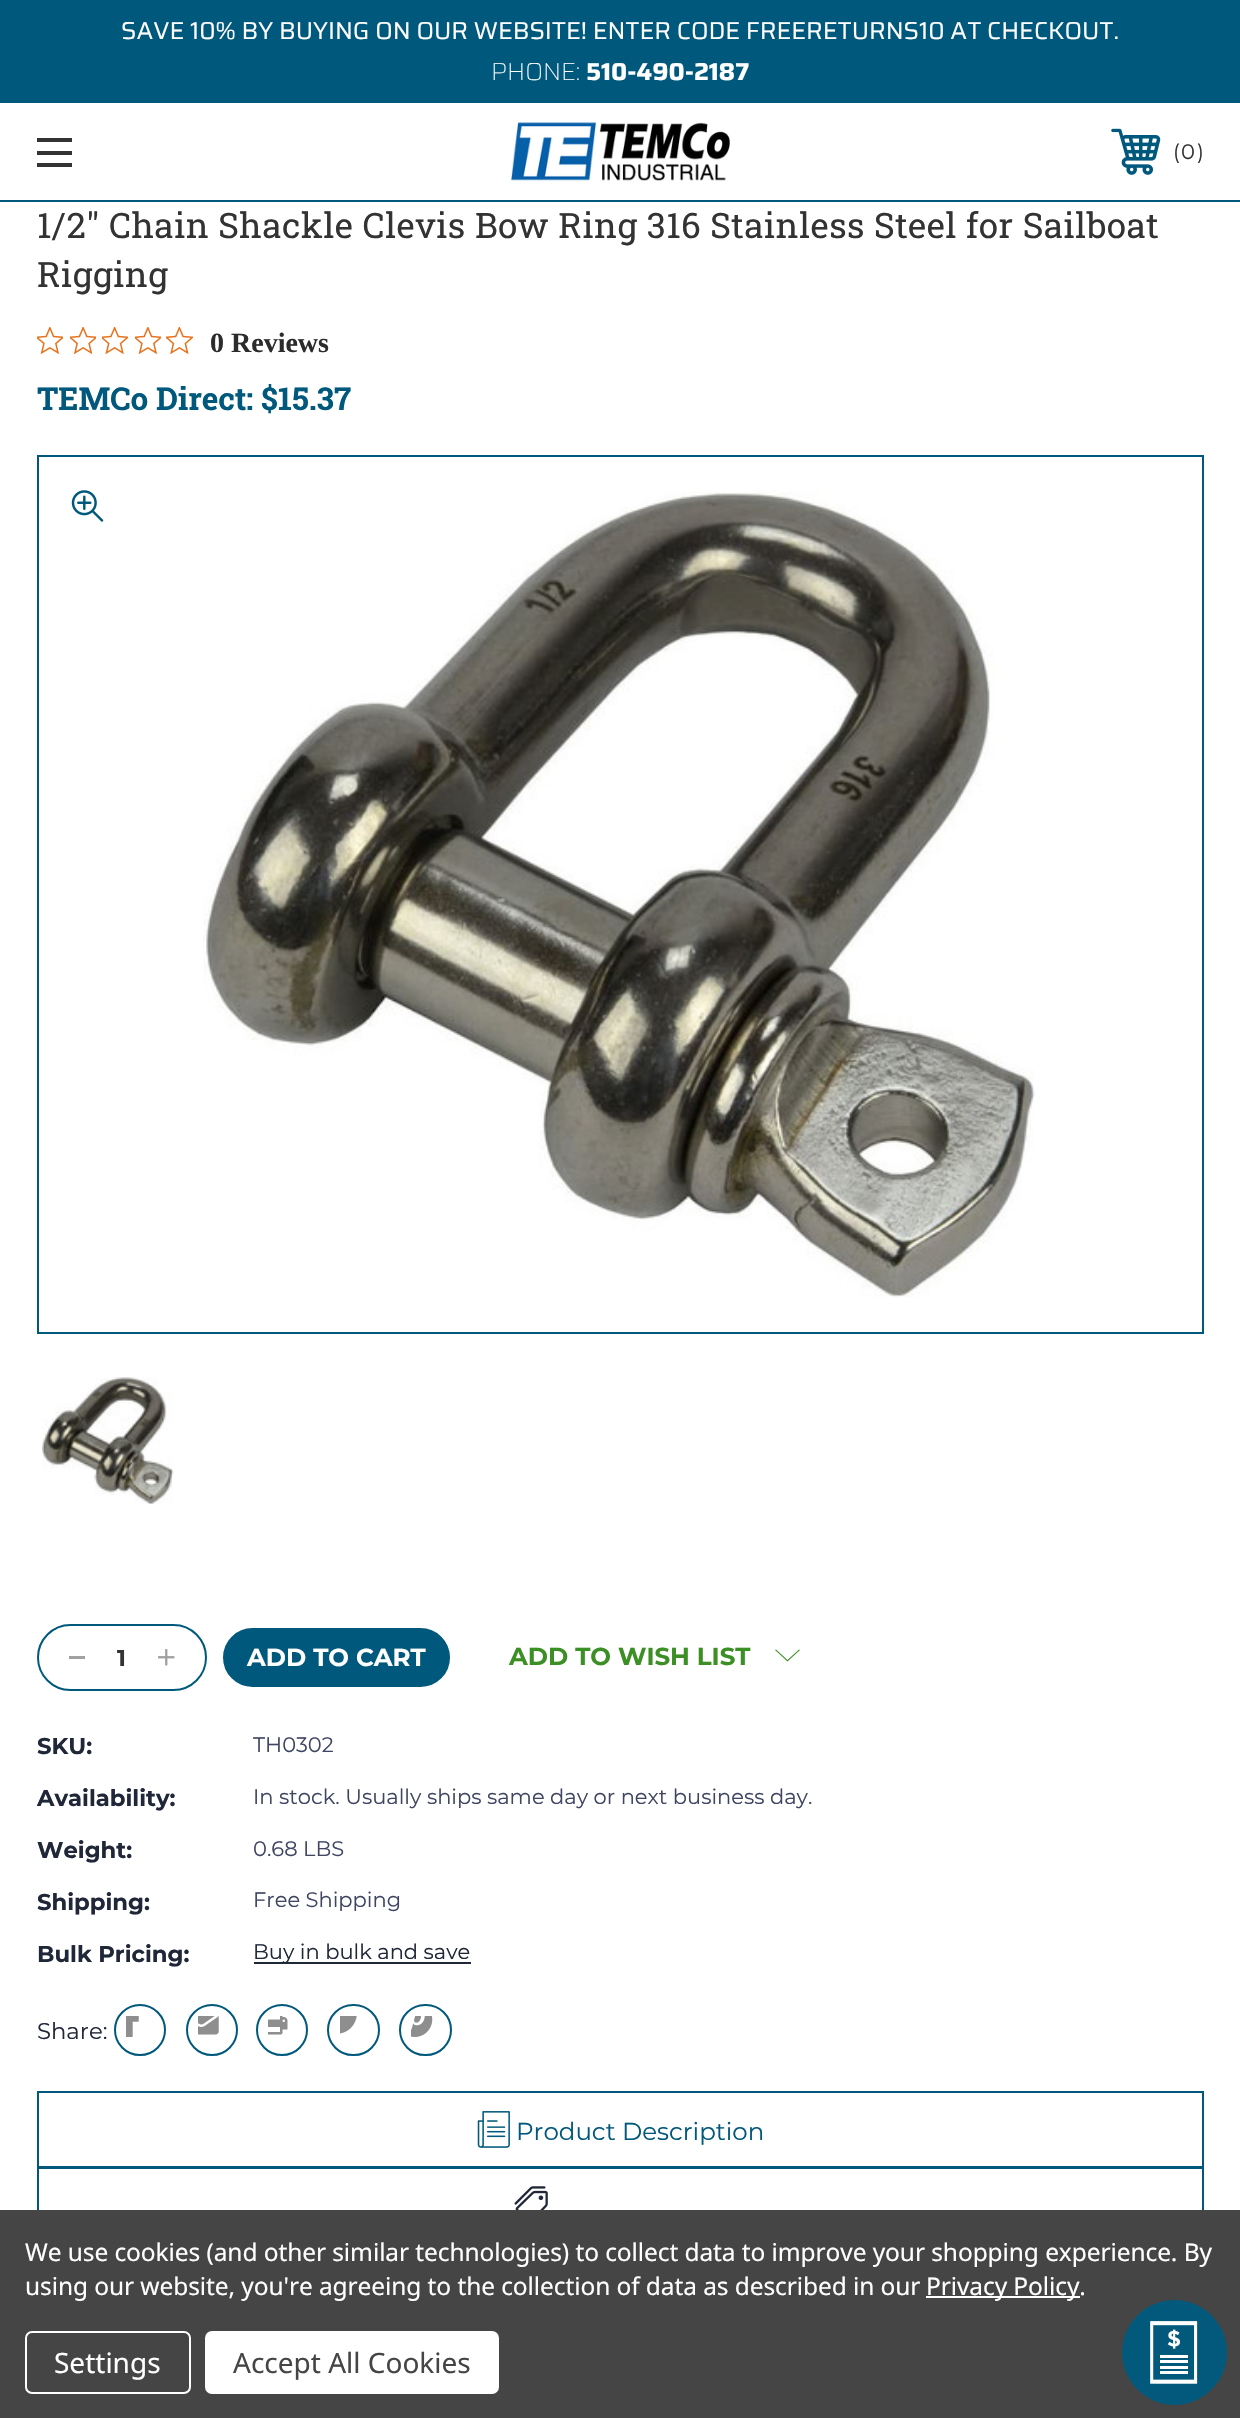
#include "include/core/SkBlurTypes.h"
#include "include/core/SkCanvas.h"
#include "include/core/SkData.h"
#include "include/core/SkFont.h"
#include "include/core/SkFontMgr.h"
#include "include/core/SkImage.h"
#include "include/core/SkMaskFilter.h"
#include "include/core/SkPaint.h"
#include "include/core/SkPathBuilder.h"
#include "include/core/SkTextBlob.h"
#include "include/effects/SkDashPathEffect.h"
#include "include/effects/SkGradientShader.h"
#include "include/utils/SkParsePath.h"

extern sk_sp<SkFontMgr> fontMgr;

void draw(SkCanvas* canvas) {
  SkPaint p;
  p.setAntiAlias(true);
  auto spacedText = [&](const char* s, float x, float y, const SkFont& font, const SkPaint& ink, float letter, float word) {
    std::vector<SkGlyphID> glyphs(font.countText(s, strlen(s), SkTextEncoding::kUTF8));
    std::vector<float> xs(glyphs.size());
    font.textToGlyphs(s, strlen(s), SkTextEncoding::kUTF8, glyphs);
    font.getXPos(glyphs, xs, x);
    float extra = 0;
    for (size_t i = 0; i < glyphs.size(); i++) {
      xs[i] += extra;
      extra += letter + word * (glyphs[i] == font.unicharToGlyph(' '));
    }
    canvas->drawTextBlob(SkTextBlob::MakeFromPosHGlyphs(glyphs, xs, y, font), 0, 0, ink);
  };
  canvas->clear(SK_ColorWHITE);
  p.setColor(SkColorSetRGB(0, 88, 124));
  canvas->drawRect(SkRect::MakeLTRB(0, 0, 1240, 103), p);
  canvas->drawRect(SkRect::MakeLTRB(0, 200, 1240, 202), p);
  p.setColor(SkColorSetRGB(51, 51, 51));
  canvas->drawRect(SkRect::MakeLTRB(37, 151, 72, 155), p);
  canvas->drawRect(SkRect::MakeLTRB(37, 138, 72, 142), p);
  canvas->drawRect(SkRect::MakeLTRB(37, 163, 72, 167), p);
  canvas->drawImageRect(SkImages::DeferredFromEncodedData(SkData::MakeFromFileName("images/1.png")), SkRect::MakeLTRB(511, 122, 730, 181), SkSamplingOptions());
  canvas->drawImageRect(SkImages::DeferredFromEncodedData(SkData::MakeFromFileName("images/2.png")), SkRect::MakeLTRB(1111, 128, 1161, 175), SkSamplingOptions());
  canvas->drawImageRect(SkImages::DeferredFromEncodedData(SkData::MakeFromFileName("images/3.png")), SkRect::MakeLTRB(37, 327, 63, 354), SkSamplingOptions());
  canvas->drawImageRect(SkImages::DeferredFromEncodedData(SkData::MakeFromFileName("images/4.png")), SkRect::MakeLTRB(70, 327, 96, 354), SkSamplingOptions());
  canvas->drawImageRect(SkImages::DeferredFromEncodedData(SkData::MakeFromFileName("images/5.png")), SkRect::MakeLTRB(102, 327, 128, 354), SkSamplingOptions());
  canvas->drawImageRect(SkImages::DeferredFromEncodedData(SkData::MakeFromFileName("images/3.png")), SkRect::MakeLTRB(135, 327, 161, 354), SkSamplingOptions());
  canvas->drawImageRect(SkImages::DeferredFromEncodedData(SkData::MakeFromFileName("images/6.png")), SkRect::MakeLTRB(166, 327, 193, 354), SkSamplingOptions());
  p.setStyle(SkPaint::kStroke_Style);
  p.setStrokeWidth(2);
  p.setColor(SkColorSetRGB(0, 88, 124));
  canvas->drawRect(SkRect::MakeLTRB(38, 456, 1203, 1333), p);
  canvas->drawImageRect(SkImages::DeferredFromEncodedData(SkData::MakeFromFileName("images/7.png")), SkRect::MakeLTRB(203, 491, 1035, 1298), SkSamplingOptions());
  canvas->drawImageRect(SkImages::DeferredFromEncodedData(SkData::MakeFromFileName("images/8.png")), SkRect::MakeLTRB(71, 490, 104, 522), SkSamplingOptions());
  canvas->drawImageRect(SkImages::DeferredFromEncodedData(SkData::MakeFromFileName("images/9.png")), SkRect::MakeLTRB(42, 1377, 174, 1504), SkSamplingOptions());
  canvas->drawRoundRect(SkRect::MakeLTRB(38, 1625, 206, 1690), 32.5f, 32.5f, p);
  p.setStyle(SkPaint::kFill_Style);
  p.setColor(SkColorSetRGB(161, 161, 161));
  canvas->drawRect(SkRect::MakeLTRB(69, 1656, 85, 1659), p);
  canvas->drawImageRect(SkImages::DeferredFromEncodedData(SkData::MakeFromFileName("images/10.png")), SkRect::MakeLTRB(158, 1649, 175, 1666), SkSamplingOptions());
  p.setColor(SkColorSetRGB(0, 88, 124));
  canvas->drawRoundRect(SkRect::MakeLTRB(222, 1627, 451, 1688), 30.5f, 30.5f, p);
  p.setStyle(SkPaint::kStroke_Style);
  p.setColor(SK_ColorWHITE);
  canvas->drawRoundRect(SkRect::MakeLTRB(222, 1627, 451, 1688), 30.5f, 30.5f, p);
  p.setStyle(SkPaint::kFill_Style);
  p.setColor(SkColorSetRGB(59, 143, 36));
  canvas->drawPath(SkPathBuilder(SkPathFillType::kEvenOdd).moveTo(787.5f, 1660).lineTo(799, 1649.5f).lineTo(800, 1650).lineTo(787.5f, 1661.5f).lineTo(775, 1650).lineTo(776, 1649.5f).close().detach(), p);
  p.setColor(SkColorSetRGB(32, 39, 56));
  canvas->drawRect(SkRect::MakeLTRB(254, 1962, 471, 1964), p);
  p.setStyle(SkPaint::kStroke_Style);
  p.setColor(SkColorSetRGB(0, 88, 124));
  canvas->drawCircle(140, 2030, 25, p);
  canvas->drawImageRect(SkImages::DeferredFromEncodedData(SkData::MakeFromFileName("images/11.png")), SkRect::MakeLTRB(126, 2016, 139, 2037), SkSamplingOptions());
  canvas->drawCircle(212, 2030, 25, p);
  canvas->drawImageRect(SkImages::DeferredFromEncodedData(SkData::MakeFromFileName("images/12.png")), SkRect::MakeLTRB(198, 2016, 219, 2035), SkSamplingOptions());
  canvas->drawCircle(282, 2030, 25, p);
  canvas->drawImageRect(SkImages::DeferredFromEncodedData(SkData::MakeFromFileName("images/13.png")), SkRect::MakeLTRB(268, 2016, 288, 2035), SkSamplingOptions());
  canvas->drawRoundRect(SkRect::MakeLTRB(328, 2005, 379, 2055), 25, 25, p);
  canvas->drawImageRect(SkImages::DeferredFromEncodedData(SkData::MakeFromFileName("images/14.png")), SkRect::MakeLTRB(340, 2016, 357, 2034), SkSamplingOptions());
  canvas->drawRoundRect(SkRect::MakeLTRB(400, 2005, 451, 2055), 25, 25, p);
  canvas->drawImageRect(SkImages::DeferredFromEncodedData(SkData::MakeFromFileName("images/15.png")), SkRect::MakeLTRB(411, 2016, 433, 2037), SkSamplingOptions());
  canvas->drawRect(SkRect::MakeLTRB(38, 2092, 1203, 2167), p);
  canvas->drawImageRect(SkImages::DeferredFromEncodedData(SkData::MakeFromFileName("images/16.png")), SkRect::MakeLTRB(477, 2111, 510, 2148), SkSamplingOptions());
  canvas->drawRect(SkRect::MakeLTRB(38, 2168, 1203, 2243), p);
  canvas->drawImageRect(SkImages::DeferredFromEncodedData(SkData::MakeFromFileName("images/17.png")), SkRect::MakeLTRB(514, 2186, 548, 2210), SkSamplingOptions());
  p.setStyle(SkPaint::kFill_Style);
  p.setColor(SkColorSetRGB(69, 69, 69));
  canvas->drawRect(SkRect::MakeLTRB(0, 2210, 1240, 2418), p);
  p.setColor(SK_ColorWHITE);
  canvas->drawRect(SkRect::MakeLTRB(926, 2296, 1080, 2298), p);
  p.setStyle(SkPaint::kStroke_Style);
  canvas->drawRoundRect(SkRect::MakeLTRB(26, 2332, 190, 2393), 6, 6, p);
  p.setStyle(SkPaint::kFill_Style);
  canvas->drawRoundRect(SkRect::MakeLTRB(205, 2331, 499, 2394), 7, 7, p);
  p.setColor(SkColorSetRGB(2, 89, 124));
  canvas->drawCircle(1174.5f, 2352.5f, 52.5f, p);
  canvas->drawImageRect(SkImages::DeferredFromEncodedData(SkData::MakeFromFileName("images/18.png")), SkRect::MakeLTRB(1150, 2321, 1198, 2384), SkSamplingOptions());
  SkFont font1(fontMgr->matchFamilyStyle("Saira", SkFontStyle::Normal()), 24.5f);
  font1.setSubpixel(true);
  p.setColor(SK_ColorWHITE);
  canvas->drawString("SAVE 10% BY BUYING ON OUR WEBSITE! ENTER CODE FREERETURNS10 AT CHECKOUT.", 121, 39, font1, p);
  SkFont font2(fontMgr->matchFamilyStyle("Saira", SkFontStyle(100, SkFontStyle::kNormal_Width, SkFontStyle::kUpright_Slant)), 24.5f);
  font2.setSubpixel(true);
  canvas->drawString("PHONE:", 491, 80, font2, p);
  SkFont font3(fontMgr->matchFamilyStyle("Saira", SkFontStyle::Bold()), 24.5f);
  font3.setSubpixel(true);
  canvas->drawString("510-490-2187", 586, 80, font3, p);
  SkFont font4(fontMgr->matchFamilyStyle("Montserrat", SkFontStyle::Normal()), 21);
  font4.setSubpixel(true);
  p.setColor(SkColorSetRGB(51, 51, 51));
  canvas->drawString("(", 1173, 159, font4, p);
  canvas->drawString("0", 1181, 159, font4, p);
  canvas->drawString(")", 1197, 159, font4, p);
  SkFont font5(fontMgr->matchFamilyStyle("Roboto Slab", SkFontStyle::Normal()), 35);
  font5.setSubpixel(true);
  spacedText("1/2\" Chain Shackle Clevis Bow Ring 316 Stainless Steel for Sailboat", 37, 238, font5, p, 0.45f, 0);
  spacedText("Rigging", 37, 287, font5, p, 0.45f, 0);
  SkFont font6(fontMgr->matchFamilyStyle("Liberation Serif", SkFontStyle::Bold()), 28);
  font6.setSubpixel(true);
  p.setColor(SkColorSetRGB(44, 44, 44));
  canvas->drawString("0 Reviews", 210, 352, font6, p);
  SkFont font7(fontMgr->matchFamilyStyle("Roboto Slab", SkFontStyle::Bold()), 31.5f);
  font7.setSubpixel(true);
  p.setColor(SkColorSetRGB(0, 88, 124));
  canvas->drawString("TEMCo Direct: $15.37", 37, 410, font7, p);
  SkFont font8(fontMgr->matchFamilyStyle("Montserrat", SkFontStyle::Bold()), 22.75f);
  font8.setSubpixel(true);
  p.setColor(SkColorSetRGB(51, 51, 51));
  canvas->drawString("1", 117, 1666, font8, p);
  SkFont font9(fontMgr->matchFamilyStyle("Montserrat", SkFontStyle::Bold()), 24.5f);
  font9.setSubpixel(true);
  p.setColor(SK_ColorWHITE);
  canvas->drawString("ADD TO CART", 247, 1666, font9, p);
  p.setColor(SkColorSetRGB(59, 143, 36));
  canvas->drawString("ADD TO WISH LIST", 509, 1665, font9, p);
  p.setColor(SkColorSetRGB(32, 39, 56));
  canvas->drawString("SKU:", 37, 1754, font8, p);
  p.setColor(SkColorSetRGB(63, 69, 98));
  canvas->drawString("TH0302", 253, 1752, font4, p);
  p.setColor(SkColorSetRGB(32, 39, 56));
  canvas->drawString("Availability:", 37, 1806, font8, p);
  p.setColor(SkColorSetRGB(63, 69, 98));
  canvas->drawString("In stock. Usually ships same day or next business day.", 253, 1804, font4, p);
  p.setColor(SkColorSetRGB(32, 39, 56));
  canvas->drawString("Weight:", 37, 1858, font8, p);
  p.setColor(SkColorSetRGB(63, 69, 98));
  canvas->drawString("0.68 LBS", 253, 1856, font4, p);
  p.setColor(SkColorSetRGB(32, 39, 56));
  canvas->drawString("Shipping:", 37, 1910, font8, p);
  p.setColor(SkColorSetRGB(63, 69, 98));
  canvas->drawString("Free Shipping", 253, 1907, font4, p);
  p.setColor(SkColorSetRGB(32, 39, 56));
  canvas->drawString("Bulk Pricing:", 37, 1962, font8, p);
  canvas->drawString("Buy in bulk and save", 253, 1959, font4, p);
  SkFont font10(fontMgr->matchFamilyStyle("Montserrat", SkFontStyle::Normal()), 22.75f);
  font10.setSubpixel(true);
  canvas->drawString("Share:", 37, 2039, font10, p);
  SkFont font11(fontMgr->matchFamilyStyle("Montserrat", SkFontStyle::Normal()), 24.5f);
  font11.setSubpixel(true);
  p.setColor(SkColorSetRGB(0, 88, 124));
  canvas->drawString("Product Description", 516, 2140, font11, p);
  SkFont font12(fontMgr->matchFamilyStyle("Noto Sans", SkFontStyle::Normal()), 24.5f);
  font12.setSubpixel(true);
  p.setColor(SK_ColorWHITE);
  spacedText("We use cookies (and other similar technologies) to collect data to improve your shopping experience. By", 25, 2261, font12, p, -0.09f, 0);
  spacedText("using our website, you're agreeing to the collection of data as described in our", 25, 2295, font12, p, -0.09f, 0);
  spacedText("Privacy Policy.", 926, 2295, font12, p, -0.09f, 0);
  SkFont font13(fontMgr->matchFamilyStyle("Noto Sans", SkFontStyle::Normal()), 28);
  font13.setSubpixel(true);
  canvas->drawString("Settings", 54, 2373, font13, p);
  p.setColor(SkColorSetRGB(69, 69, 69));
  canvas->drawString("Accept All Cookies", 233, 2373, font13, p);
}
